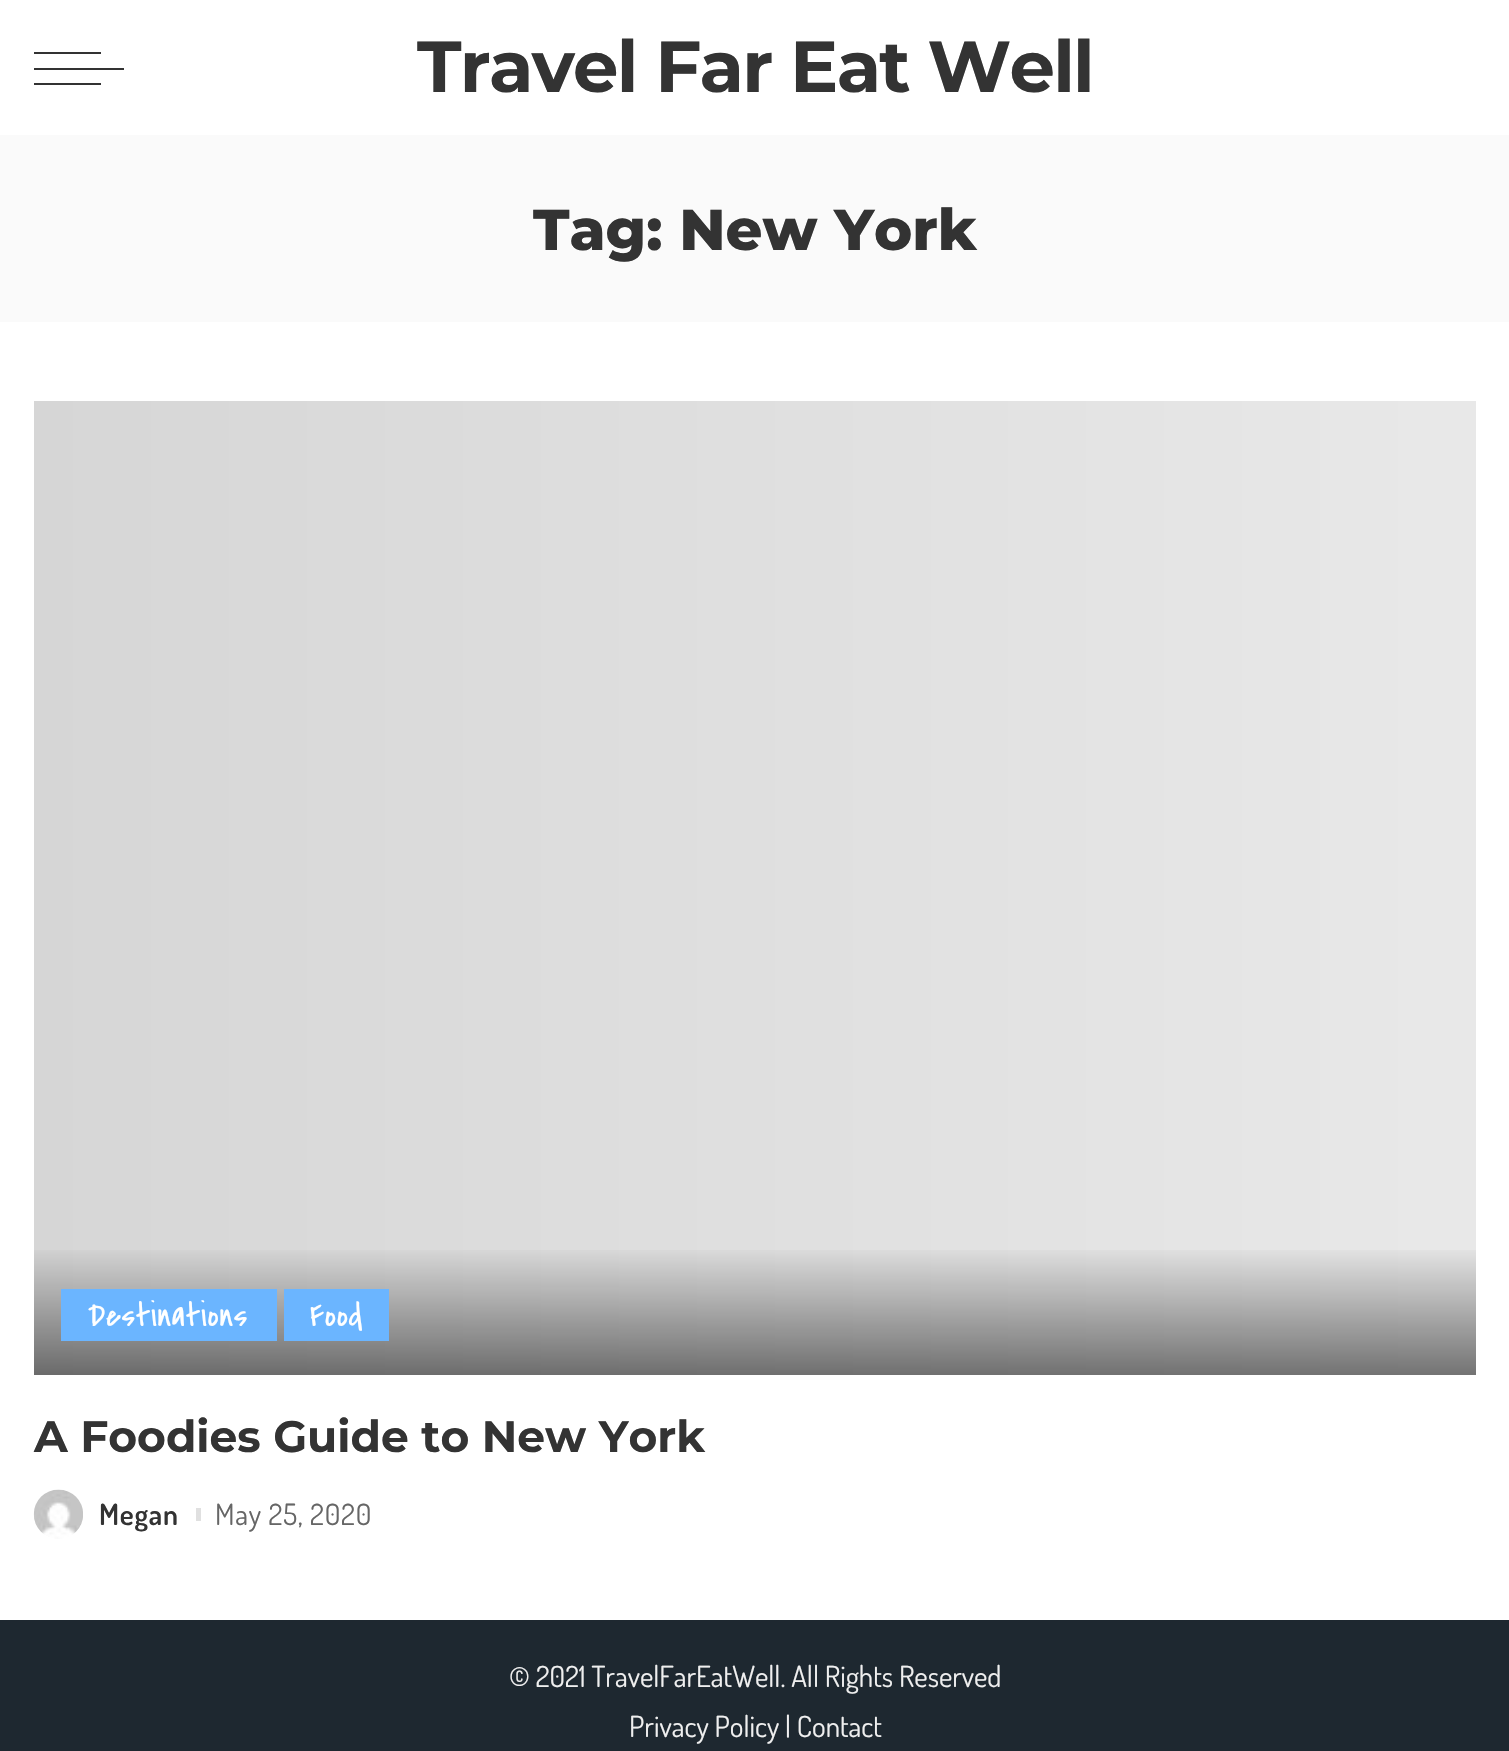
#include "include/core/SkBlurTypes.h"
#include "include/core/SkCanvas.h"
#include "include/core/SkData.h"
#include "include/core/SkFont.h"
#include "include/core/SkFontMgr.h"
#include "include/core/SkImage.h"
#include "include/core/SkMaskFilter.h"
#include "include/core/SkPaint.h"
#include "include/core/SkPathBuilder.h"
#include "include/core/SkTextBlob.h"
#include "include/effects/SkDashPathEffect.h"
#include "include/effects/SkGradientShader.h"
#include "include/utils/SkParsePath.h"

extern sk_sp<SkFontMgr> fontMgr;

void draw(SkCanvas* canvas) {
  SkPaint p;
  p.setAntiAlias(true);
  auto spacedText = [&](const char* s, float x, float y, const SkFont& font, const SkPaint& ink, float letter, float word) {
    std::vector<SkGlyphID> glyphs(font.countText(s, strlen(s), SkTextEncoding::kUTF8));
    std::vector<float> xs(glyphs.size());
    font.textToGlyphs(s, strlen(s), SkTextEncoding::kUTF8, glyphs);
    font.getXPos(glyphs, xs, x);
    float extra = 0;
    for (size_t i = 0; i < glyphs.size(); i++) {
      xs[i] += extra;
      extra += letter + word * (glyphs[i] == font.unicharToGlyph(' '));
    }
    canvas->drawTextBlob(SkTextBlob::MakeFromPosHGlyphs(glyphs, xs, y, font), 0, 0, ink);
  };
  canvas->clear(SK_ColorWHITE);
  p.setColor(SkColorSetRGB(51, 51, 51));
  canvas->drawRect(SkRect::MakeLTRB(34, 68, 124, 70), p);
  canvas->drawRect(SkRect::MakeLTRB(34, 52, 101, 54), p);
  canvas->drawRect(SkRect::MakeLTRB(34, 83, 101, 85), p);
  p.setColor(SkColorSetRGB(250, 250, 250));
  canvas->drawRect(SkRect::MakeLTRB(0, 135, 1509, 322), p);
  {
    const SkColor colors[] = {SkColorSetRGB(214, 214, 214), SkColorSetRGB(251, 251, 251), SkColorSetRGB(214, 214, 214)};
    const float stops[] = {0, 0.5f, 1};
    const SkPoint ends[] = {{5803, 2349}, {34, 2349}};
    p.setShader(SkGradientShader::MakeLinear(ends, colors, stops, 3, SkTileMode::kClamp));
    p.setAlpha(255);
  }
  canvas->drawRect(SkRect::MakeLTRB(34, 401, 1476, 1375), p);
  {
    const SkColor colors[] = {SkColorSetARGB(0, 0, 0, 0), SkColorSetARGB(128, 0, 0, 0)};
    const float stops[] = {0, 1};
    const SkPoint ends[] = {{755, 1244}, {755, 1375}};
    p.setShader(SkGradientShader::MakeLinear(ends, colors, stops, 2, SkTileMode::kClamp));
    p.setAlpha(255);
  }
  canvas->drawRect(SkRect::MakeLTRB(34, 1250, 1476, 1375), p);
  p.setShader(nullptr);
  p.setColor(SkColorSetRGB(107, 181, 255));
  canvas->drawRect(SkRect::MakeLTRB(61, 1289, 277, 1341), p);
  canvas->drawRect(SkRect::MakeLTRB(284, 1289, 389, 1341), p);
  canvas->drawImageRect(SkImages::DeferredFromEncodedData(SkData::MakeFromFileName("images/1.png")), SkRect::MakeLTRB(33, 1489, 83, 1539), SkSamplingOptions());
  p.setColor(SkColorSetRGB(224, 224, 224));
  canvas->drawRect(SkRect::MakeLTRB(196, 1508, 201, 1521), p);
  p.setColor(SkColorSetRGB(30, 40, 48));
  canvas->drawRect(SkRect::MakeLTRB(0, 1620, 1509, 1751), p);
  SkFont font1(fontMgr->matchFamilyStyle("Montserrat", SkFontStyle::Bold()), 72);
  font1.setSubpixel(true);
  p.setColor(SkColorSetRGB(51, 51, 51));
  spacedText("Travel Far Eat Well", 417, 92, font1, p, -1.75f, 0);
  SkFont font2(fontMgr->matchFamilyStyle("Montserrat", SkFontStyle(800, SkFontStyle::kNormal_Width, SkFontStyle::kUpright_Slant)), 57.5f);
  font2.setSubpixel(true);
  canvas->drawString("Tag: New York", 533, 250, font2, p);
  SkFont font3(fontMgr->matchFamilyStyle("Covered By Your Grace", SkFontStyle::Normal()), 33.75f);
  font3.setSubpixel(true);
  p.setColor(SK_ColorWHITE);
  spacedText("Destinations", 88, 1326, font3, p, 0.75f, 0);
  spacedText("Food", 310, 1326, font3, p, 0.75f, 0);
  SkFont font4(fontMgr->matchFamilyStyle("Montserrat", SkFontStyle::Bold()), 44);
  font4.setSubpixel(true);
  p.setColor(SkColorSetRGB(51, 51, 51));
  canvas->drawString("A Foodies Guide to New York", 34, 1452, font4, p);
  SkFont font5(fontMgr->matchFamilyStyle("Dosis", SkFontStyle(600, SkFontStyle::kNormal_Width, SkFontStyle::kUpright_Slant)), 29.25f);
  font5.setSubpixel(true);
  spacedText("Megan", 99, 1525, font5, p, 0.75f, 0);
  SkFont font6(fontMgr->matchFamilyStyle("Dosis", SkFontStyle::Normal()), 29.25f);
  font6.setSubpixel(true);
  p.setColor(SkColorSetRGB(102, 102, 102));
  spacedText("May 25, 2020", 215, 1525, font6, p, 0.75f, 0);
  SkFont font7(fontMgr->matchFamilyStyle("Dosis", SkFontStyle::Normal()), 29.1f);
  font7.setSubpixel(true);
  p.setColor(SkColorSetRGB(239, 239, 239));
  canvas->drawString("© 2021 TravelFarEatWell. All Rights Reserved", 509, 1687, font7, p);
  canvas->drawString("Privacy Policy | Contact", 629, 1737, font7, p);
}
